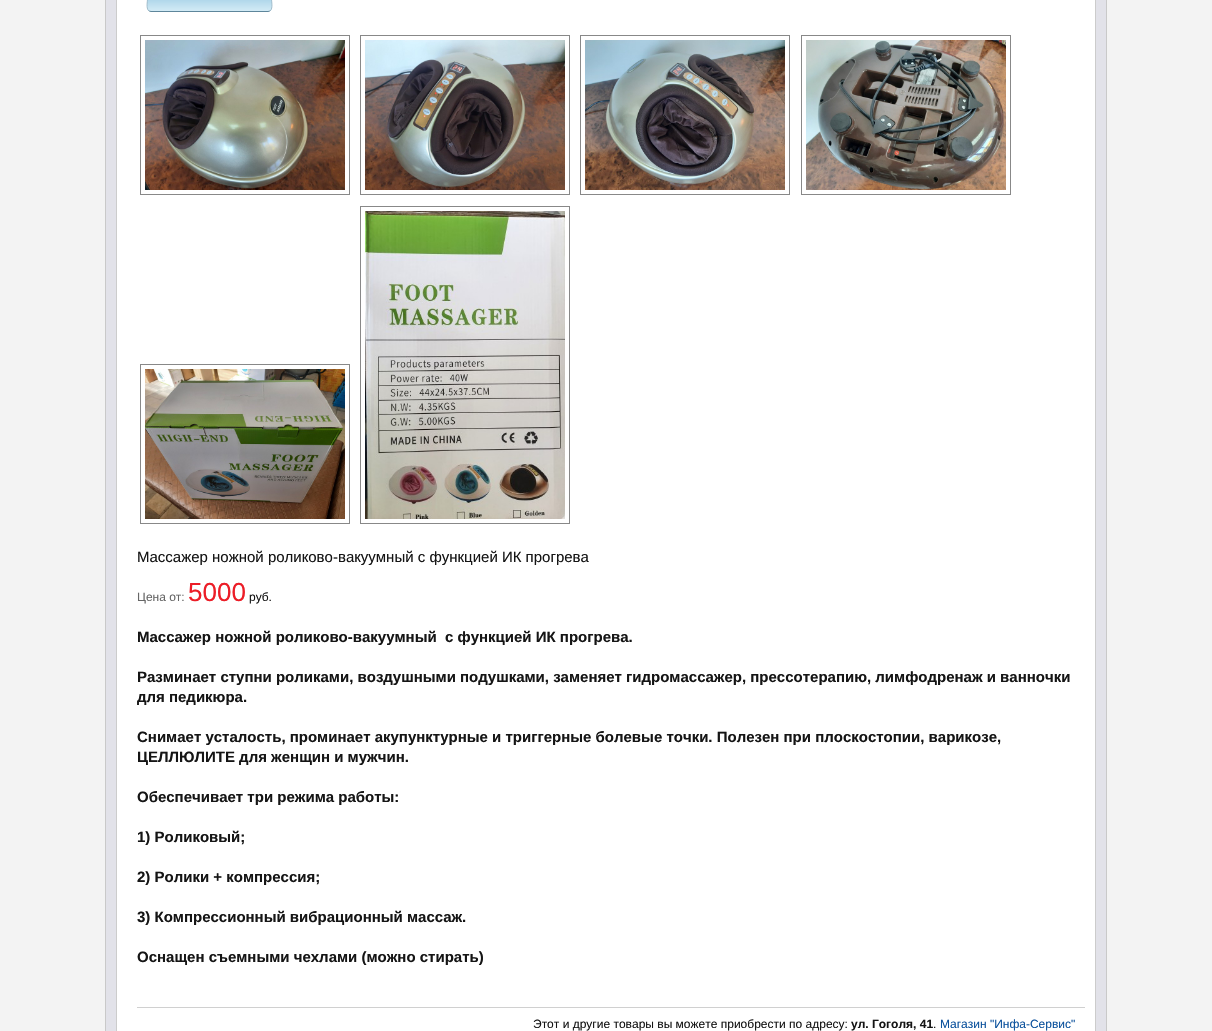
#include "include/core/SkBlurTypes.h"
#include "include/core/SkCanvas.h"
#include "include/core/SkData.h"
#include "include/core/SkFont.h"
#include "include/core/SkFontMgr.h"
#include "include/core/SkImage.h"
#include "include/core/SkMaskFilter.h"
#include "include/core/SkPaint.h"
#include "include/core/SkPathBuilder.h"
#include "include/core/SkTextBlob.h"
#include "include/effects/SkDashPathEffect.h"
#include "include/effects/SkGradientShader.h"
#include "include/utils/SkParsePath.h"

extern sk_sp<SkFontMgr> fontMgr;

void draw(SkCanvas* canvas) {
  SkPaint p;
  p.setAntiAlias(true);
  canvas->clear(SkColorSetRGB(243, 243, 243));
  p.setColor(SkColorSetRGB(226, 226, 233));
  canvas->drawRect(SkRect::MakeLTRB(105.5f, -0.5f, 1106.5f, 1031.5f), p);
  p.setStyle(SkPaint::kStroke_Style);
  p.setStrokeWidth(1);
  p.setColor(SkColorSetRGB(201, 201, 201));
  canvas->drawRect(SkRect::MakeLTRB(105.5f, -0.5f, 1106.5f, 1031.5f), p);
  p.setStyle(SkPaint::kFill_Style);
  p.setColor(SK_ColorWHITE);
  canvas->drawRect(SkRect::MakeLTRB(116.5f, -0.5f, 1095.5f, 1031.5f), p);
  p.setStyle(SkPaint::kStroke_Style);
  p.setColor(SkColorSetRGB(204, 204, 204));
  canvas->drawRect(SkRect::MakeLTRB(116.5f, -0.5f, 1095.5f, 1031.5f), p);
  canvas->save();
  canvas->clipPath(SkPathBuilder().moveTo(151, -23).lineTo(268, -23).cubicTo(270, -23, 272, -21, 272, -19).lineTo(272, 8).cubicTo(272, 10, 270, 12, 268, 12).lineTo(151, 12).cubicTo(149, 12, 147, 10, 147, 8).lineTo(147, -19).cubicTo(147, -21, 149, -23, 151, -23).close().detach(), true);
  p.setStyle(SkPaint::kFill_Style);
  {
    const SkColor colors[] = {SkColorSetRGB(244, 251, 254), SkColorSetRGB(178, 216, 235), SkColorSetRGB(211, 235, 246)};
    const float stops[] = {0, 0.68f, 1};
    const SkPoint ends[] = {{210, -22}, {210, 11}};
    p.setShader(SkGradientShader::MakeLinear(ends, colors, stops, 3, SkTileMode::kClamp));
    p.setAlpha(255);
  }
  canvas->drawRect(SkRect::MakeLTRB(147, 0, 272, 11), p);
  canvas->restore();
  p.setStyle(SkPaint::kStroke_Style);
  p.setShader(nullptr);
  p.setColor(SkColorSetRGB(94, 134, 155));
  canvas->drawPath(SkPathBuilder().moveTo(270.5f, 10.5f).cubicTo(270, 11, 269, 11.5f, 268, 11.5f).lineTo(151, 11.5f).cubicTo(150, 11.5f, 149, 11, 148.5f, 10.5f).detach(), p);
  p.setColor(SkColorSetRGB(163, 190, 204));
  canvas->drawPath(SkPathBuilder().moveTo(148.5f, 10.5f).cubicTo(146, 8, 147.5f, 1.5f, 147.5f, -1).cubicTo(147.5f, -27, 143, -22.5f, 170.5f, -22.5f).lineTo(248.5f, -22.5f).cubicTo(276, -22.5f, 271.5f, -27, 271.5f, -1).cubicTo(271.5f, 1.5f, 273, 8, 270.5f, 10.5f).detach(), p);
  p.setColor(SkColorSetRGB(136, 136, 136));
  canvas->drawRect(SkRect::MakeLTRB(140.5f, 35.5f, 349.5f, 194.5f), p);
  canvas->drawRect(SkRect::MakeLTRB(360.5f, 35.5f, 569.5f, 194.5f), p);
  canvas->drawRect(SkRect::MakeLTRB(580.5f, 35.5f, 789.5f, 194.5f), p);
  canvas->drawRect(SkRect::MakeLTRB(801.5f, 35.5f, 1010.5f, 194.5f), p);
  canvas->drawImageRect(SkImages::DeferredFromEncodedData(SkData::MakeFromFileName("images/1.png")), SkRect::MakeLTRB(145, 40, 345, 190), SkSamplingOptions());
  canvas->drawImageRect(SkImages::DeferredFromEncodedData(SkData::MakeFromFileName("images/2.png")), SkRect::MakeLTRB(365, 40, 565, 190), SkSamplingOptions());
  canvas->drawImageRect(SkImages::DeferredFromEncodedData(SkData::MakeFromFileName("images/3.png")), SkRect::MakeLTRB(585, 40, 785, 190), SkSamplingOptions());
  canvas->drawImageRect(SkImages::DeferredFromEncodedData(SkData::MakeFromFileName("images/4.png")), SkRect::MakeLTRB(806, 40, 1006, 190), SkSamplingOptions());
  canvas->drawRect(SkRect::MakeLTRB(360.5f, 206.5f, 569.5f, 523.5f), p);
  canvas->drawRect(SkRect::MakeLTRB(140.5f, 364.5f, 349.5f, 523.5f), p);
  canvas->drawImageRect(SkImages::DeferredFromEncodedData(SkData::MakeFromFileName("images/5.png")), SkRect::MakeLTRB(365, 211, 565, 519), SkSamplingOptions());
  canvas->drawImageRect(SkImages::DeferredFromEncodedData(SkData::MakeFromFileName("images/6.png")), SkRect::MakeLTRB(145, 369, 345, 519), SkSamplingOptions());
  p.setStyle(SkPaint::kFill_Style);
  p.setColor(SkColorSetRGB(208, 208, 208));
  canvas->drawRect(SkRect::MakeLTRB(137, 1007, 1085, 1008), p);
  SkFont font1(fontMgr->matchFamilyStyle("Liberation Sans", SkFontStyle::Normal()), 15);
  font1.setSubpixel(true);
  p.setColor(SkColorSetRGB(21, 21, 21));
  canvas->drawString("Массажер ножной роликово-вакуумный с функцией ИК прогрева", 137, 562, font1, p);
  SkFont font2(fontMgr->matchFamilyStyle("Liberation Sans", SkFontStyle::Normal()), 12);
  font2.setSubpixel(true);
  p.setColor(SkColorSetRGB(102, 102, 102));
  canvas->drawString("Цена от:", 137, 601, font2, p);
  SkFont font3(fontMgr->matchFamilyStyle("Liberation Sans", SkFontStyle::Normal()), 26);
  font3.setSubpixel(true);
  p.setColor(SkColorSetRGB(236, 29, 39));
  canvas->drawString("5000", 188, 601, font3, p);
  p.setColor(SkColorSetRGB(21, 21, 21));
  canvas->drawString("руб.", 249, 601, font2, p);
  SkFont font4(fontMgr->matchFamilyStyle("Liberation Sans", SkFontStyle::Bold()), 15);
  font4.setSubpixel(true);
  canvas->drawString("Массажер ножной роликово-вакуумный  с функцией ИК прогрева.", 137, 642, font4, p);
  canvas->drawString("Разминает ступни роликами, воздушными подушками, заменяет гидромассажер, прессотерапию, лимфодренаж и ванночки", 137, 682, font4, p);
  canvas->drawString("для педикюра.", 137, 702, font4, p);
  canvas->drawString("Снимает усталость, проминает акупунктурные и триггерные болевые точки. Полезен при плоскостопии, варикозе,", 137, 742, font4, p);
  canvas->drawString("ЦЕЛЛЮЛИТЕ для женщин и мужчин.", 137, 762, font4, p);
  canvas->drawString("Обеспечивает три режима работы:", 137, 802, font4, p);
  canvas->drawString("1) Роликовый;", 137, 842, font4, p);
  canvas->drawString("2) Ролики + компрессия;", 137, 882, font4, p);
  canvas->drawString("3) Компрессионный вибрационный массаж.", 137, 922, font4, p);
  canvas->drawString("Оснащен съемными чехлами (можно стирать)", 137, 962, font4, p);
  canvas->drawString("Этот и другие товары вы можете приобрести по адресу:", 533, 1028, font2, p);
  SkFont font5(fontMgr->matchFamilyStyle("Liberation Sans", SkFontStyle::Bold()), 12);
  font5.setSubpixel(true);
  canvas->drawString("ул. Гоголя, 41", 851, 1028, font5, p);
  canvas->drawString(".", 933, 1028, font2, p);
  p.setColor(SkColorSetRGB(12, 82, 157));
  canvas->drawString("Магазин \"Инфа-Сервис\"", 940, 1028, font2, p);
}
